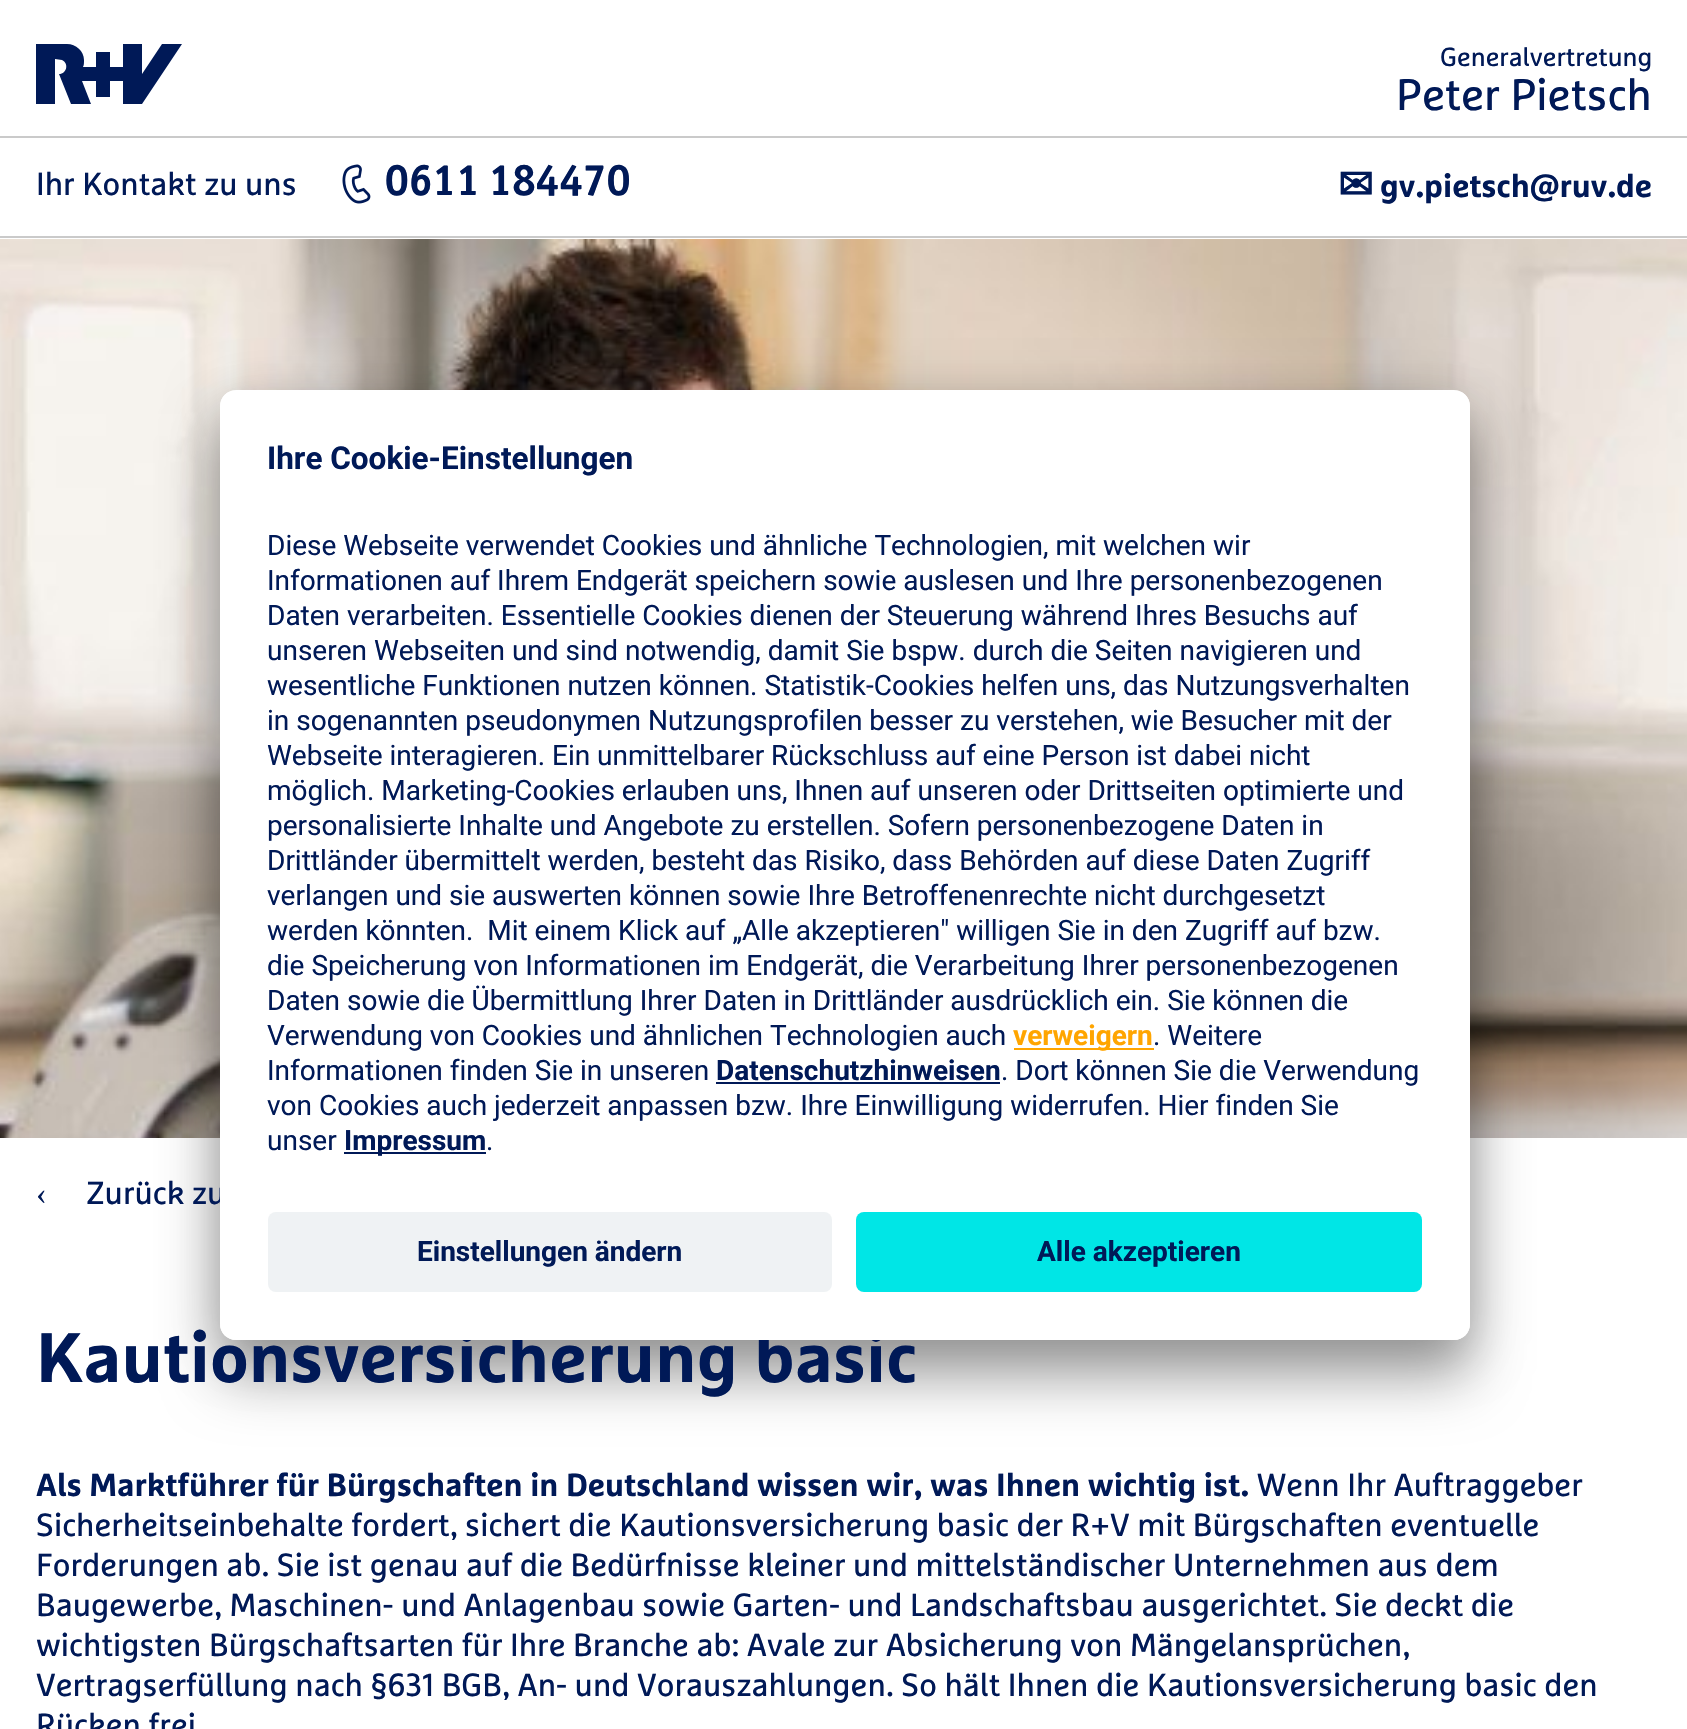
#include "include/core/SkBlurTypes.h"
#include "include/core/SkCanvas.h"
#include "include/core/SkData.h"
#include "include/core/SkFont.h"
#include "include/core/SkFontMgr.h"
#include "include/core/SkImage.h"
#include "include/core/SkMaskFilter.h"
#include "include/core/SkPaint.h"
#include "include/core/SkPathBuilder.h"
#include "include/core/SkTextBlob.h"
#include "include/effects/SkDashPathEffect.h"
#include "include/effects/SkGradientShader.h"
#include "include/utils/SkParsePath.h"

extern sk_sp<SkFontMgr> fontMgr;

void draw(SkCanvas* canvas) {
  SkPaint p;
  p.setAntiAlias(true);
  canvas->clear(SK_ColorWHITE);
  p.setColor(SkColorSetRGB(202, 202, 202));
  canvas->drawRect(SkRect::MakeLTRB(0, 236, 1687, 238), p);
  p.setColor(SkColorSetRGB(0, 25, 87));
  canvas->drawPath(SkPathBuilder(SkPathFillType::kEvenOdd).moveTo(182, 44).lineTo(162, 44).lineTo(142, 74).lineTo(142, 44).lineTo(123, 44).lineTo(123, 67).lineTo(110, 67).lineTo(110, 52).lineTo(96, 52).lineTo(96, 67).lineTo(83, 67).cubicTo(84, 65, 84, 63, 84, 60).cubicTo(84, 51, 76, 44, 67, 44).lineTo(36, 44).lineTo(36, 104).lineTo(55, 104).lineTo(55, 59).lineTo(62, 60).cubicTo(69, 63, 67, 74, 59, 74).lineTo(71, 104).lineTo(91, 104).lineTo(82, 81).lineTo(96, 81).lineTo(96, 97).lineTo(110, 97).lineTo(110, 81).lineTo(123, 81).lineTo(123, 104).lineTo(142, 104).lineTo(182, 44).detach(), p);
  p.setColor(SkColorSetRGB(202, 202, 202));
  canvas->drawRect(SkRect::MakeLTRB(0, 136, 1687, 138), p);
  canvas->drawImageRect(SkImages::DeferredFromEncodedData(SkData::MakeFromFileName("images/1.png")), SkRect::MakeLTRB(342, 164, 371, 204), SkSamplingOptions());
  canvas->drawImageRect(SkImages::DeferredFromEncodedData(SkData::MakeFromFileName("images/2.png")), SkRect::MakeLTRB(0, 239, 1687, 1138), SkSamplingOptions());
  p.setColor(SkColorSetARGB(77, 0, 0, 0));
  p.setMaskFilter(SkMaskFilter::MakeBlur(kNormal_SkBlurStyle, 28));
  canvas->drawRoundRect(SkRect::MakeLTRB(220, 430, 1470, 1380), 16, 16, p);
  p.setMaskFilter(nullptr);
  p.setColor(SkColorSetARGB(56, 0, 0, 0));
  p.setMaskFilter(SkMaskFilter::MakeBlur(kNormal_SkBlurStyle, 26));
  canvas->drawRoundRect(SkRect::MakeLTRB(220, 400, 1470, 1350), 16, 16, p);
  p.setMaskFilter(nullptr);
  SkFont font1(fontMgr->matchFamilyStyle("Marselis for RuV", SkFontStyle::Normal()), 26);
  font1.setSubpixel(true);
  p.setColor(SkColorSetRGB(0, 25, 87));
  canvas->drawString("Generalvertretung", 1440, 66, font1, p);
  SkFont font2(fontMgr->matchFamilyStyle("Marselis for RuV", SkFontStyle::Normal()), 44);
  font2.setSubpixel(true);
  canvas->drawString("Peter Pietsch", 1396, 110, font2, p);
  SkFont font3(fontMgr->matchFamilyStyle("Marselis for RuV", SkFontStyle::Normal()), 32);
  font3.setSubpixel(true);
  canvas->drawString("Ihr Kontakt zu uns", 36, 195, font3, p);
  SkFont font4(fontMgr->matchFamilyStyle("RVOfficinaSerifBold", SkFontStyle::Bold()), 44);
  font4.setSubpixel(true);
  canvas->drawString("0611 184470", 385, 195, font4, p);
  SkFont font5(fontMgr->matchFamilyStyle("DejaVu Sans", SkFontStyle::Bold()), 42);
  font5.setSubpixel(true);
  canvas->drawString("✉", 1338, 199, font5, p);
  SkFont font6(fontMgr->matchFamilyStyle("Marselis for RuV", SkFontStyle::Bold()), 32);
  font6.setSubpixel(true);
  canvas->drawString("gv.pietsch@ruv.de", 1380, 197, font6, p);
  SkFont font7(fontMgr->matchFamilyStyle("Liberation Serif", SkFontStyle::Normal()), 32);
  font7.setSubpixel(true);
  canvas->drawString("‹", 36, 1204, font7, p);
  canvas->drawString("Zurück zu", 86, 1204, font3, p);
  SkFont font8(fontMgr->matchFamilyStyle("Marselis for RuV", SkFontStyle::Bold()), 70);
  font8.setSubpixel(true);
  canvas->drawString("Kautionsversicherung basic", 36, 1382, font8, p);
  p.setColor(SK_ColorWHITE);
  canvas->drawRoundRect(SkRect::MakeLTRB(220, 390, 1470, 1340), 16, 16, p);
  canvas->save();
  canvas->clipPath(SkPathBuilder().moveTo(236, 390).lineTo(1454, 390).cubicTo(1463, 390, 1470, 397, 1470, 406).lineTo(1470, 1324).cubicTo(1470, 1333, 1463, 1340, 1454, 1340).lineTo(236, 1340).cubicTo(227, 1340, 220, 1333, 220, 1324).lineTo(220, 406).cubicTo(220, 397, 227, 390, 236, 390).close().detach(), true);
  canvas->clipPath(SkPathBuilder().moveTo(236, 390).lineTo(1454, 390).cubicTo(1463, 390, 1470, 397, 1470, 406).lineTo(1470, 1196).lineTo(220, 1196).lineTo(220, 406).cubicTo(220, 397, 227, 390, 236, 390).close().detach(), true);
  canvas->drawRect(SkRect::MakeLTRB(220, 392, 1470, 1196), p);
  canvas->restore();
  SkFont font9(fontMgr->matchFamilyStyle("Roboto", SkFontStyle::Bold()), 31.5f);
  font9.setSubpixel(true);
  p.setColor(SkColorSetRGB(0, 25, 87));
  canvas->drawString("Ihre Cookie-Einstellungen", 267, 469, font9, p);
  SkFont font10(fontMgr->matchFamilyStyle("Roboto", SkFontStyle::Normal()), 28);
  font10.setSubpixel(true);
  canvas->drawString(".", 486, 1150, font10, p);
  canvas->drawRect(SkRect::MakeLTRB(344, 1152, 486, 1154), p);
  SkFont font11(fontMgr->matchFamilyStyle("Roboto", SkFontStyle::Bold()), 28);
  font11.setSubpixel(true);
  canvas->drawString("Impressum", 344, 1150, font11, p);
  canvas->drawString("unser", 267, 1150, font10, p);
  canvas->drawString("von Cookies auch jederzeit anpassen bzw. Ihre Einwilligung widerrufen. Hier finden Sie", 267, 1115, font10, p);
  canvas->drawString(". Dort können Sie die Verwendung", 1001, 1080, font10, p);
  canvas->drawString("Datenschutzhinweisen", 716, 1080, font11, p);
  canvas->drawRect(SkRect::MakeLTRB(716, 1082, 1000, 1084), p);
  canvas->drawString("Informationen finden Sie in unseren", 267, 1080, font10, p);
  canvas->drawString(". Weitere", 1153, 1045, font10, p);
  p.setColor(SkColorSetRGB(255, 165, 0));
  canvas->drawRect(SkRect::MakeLTRB(1014, 1048, 1154, 1050), p);
  canvas->drawString("verweigern", 1013, 1045, font11, p);
  p.setColor(SkColorSetRGB(0, 25, 87));
  canvas->drawString("Verwendung von Cookies und ähnlichen Technologien auch", 267, 1045, font10, p);
  canvas->drawString("Daten sowie die Übermittlung Ihrer Daten in Drittländer ausdrücklich ein. Sie können die", 267, 1010, font10, p);
  canvas->drawString("die Speicherung von Informationen im Endgerät, die Verarbeitung Ihrer personenbezogenen", 267, 975, font10, p);
  canvas->drawString("werden könnten.  Mit einem Klick auf „Alle akzeptieren\" willigen Sie in den Zugriff auf bzw.", 267, 940, font10, p);
  canvas->drawString("verlangen und sie auswerten können sowie Ihre Betroffenenrechte nicht durchgesetzt", 267, 905, font10, p);
  canvas->drawString("Drittländer übermittelt werden, besteht das Risiko, dass Behörden auf diese Daten Zugriff", 267, 870, font10, p);
  canvas->drawString("personalisierte Inhalte und Angebote zu erstellen. Sofern personenbezogene Daten in", 267, 835, font10, p);
  canvas->drawString("möglich. Marketing-Cookies erlauben uns, Ihnen auf unseren oder Drittseiten optimierte und", 267, 800, font10, p);
  canvas->drawString("Webseite interagieren. Ein unmittelbarer Rückschluss auf eine Person ist dabei nicht", 267, 765, font10, p);
  canvas->drawString("in sogenannten pseudonymen Nutzungsprofilen besser zu verstehen, wie Besucher mit der", 267, 730, font10, p);
  canvas->drawString("wesentliche Funktionen nutzen können. Statistik-Cookies helfen uns, das Nutzungsverhalten", 267, 695, font10, p);
  canvas->drawString("unseren Webseiten und sind notwendig, damit Sie bspw. durch die Seiten navigieren und", 267, 660, font10, p);
  canvas->drawString("Daten verarbeiten. Essentielle Cookies dienen der Steuerung während Ihres Besuchs auf", 267, 625, font10, p);
  canvas->drawString("Informationen auf Ihrem Endgerät speichern sowie auslesen und Ihre personenbezogenen", 267, 590, font10, p);
  canvas->drawString("Diese Webseite verwendet Cookies und ähnliche Technologien, mit welchen wir", 267, 555, font10, p);
  p.setColor(SK_ColorWHITE);
  canvas->drawPath(SkPathBuilder().moveTo(220, 1196).lineTo(1470, 1196).lineTo(1470, 1324).cubicTo(1470, 1333, 1463, 1340, 1454, 1340).lineTo(236, 1340).cubicTo(227, 1340, 220, 1333, 220, 1324).close().detach(), p);
  p.setColor(SkColorSetRGB(0, 230, 230));
  canvas->drawRoundRect(SkRect::MakeLTRB(856, 1212, 1422, 1292), 8, 8, p);
  p.setColor(SkColorSetRGB(0, 25, 87));
  canvas->drawString("Alle akzeptieren", 1037, 1261, font11, p);
  p.setColor(SkColorSetRGB(239, 242, 244));
  canvas->drawRoundRect(SkRect::MakeLTRB(268, 1212, 832, 1292), 8, 8, p);
  p.setColor(SkColorSetRGB(0, 25, 87));
  canvas->drawString("Einstellungen ändern", 417, 1261, font11, p);
  canvas->drawString("Als Marktführer für Bürgschaften in Deutschland wissen wir, was Ihnen wichtig ist.", 36, 1496, font6, p);
  canvas->drawString("Wenn Ihr Auftraggeber", 1257, 1496, font3, p);
  canvas->drawString("Sicherheitseinbehalte fordert, sichert die Kautionsversicherung basic der R+V mit Bürgschaften eventuelle", 36, 1536, font3, p);
  canvas->drawString("Forderungen ab. Sie ist genau auf die Bedürfnisse kleiner und mittelständischer Unternehmen aus dem", 36, 1576, font3, p);
  canvas->drawString("Baugewerbe, Maschinen- und Anlagenbau sowie Garten- und Landschaftsbau ausgerichtet. Sie deckt die", 36, 1616, font3, p);
  canvas->drawString("wichtigsten Bürgschaftsarten für Ihre Branche ab: Avale zur Absicherung von Mängelansprüchen,", 36, 1656, font3, p);
  canvas->drawString("Vertragserfüllung nach §631 BGB, An- und Vorauszahlungen. So hält Ihnen die Kautionsversicherung basic den", 36, 1696, font3, p);
  canvas->drawString("Rücken frei", 36, 1736, font3, p);
}
